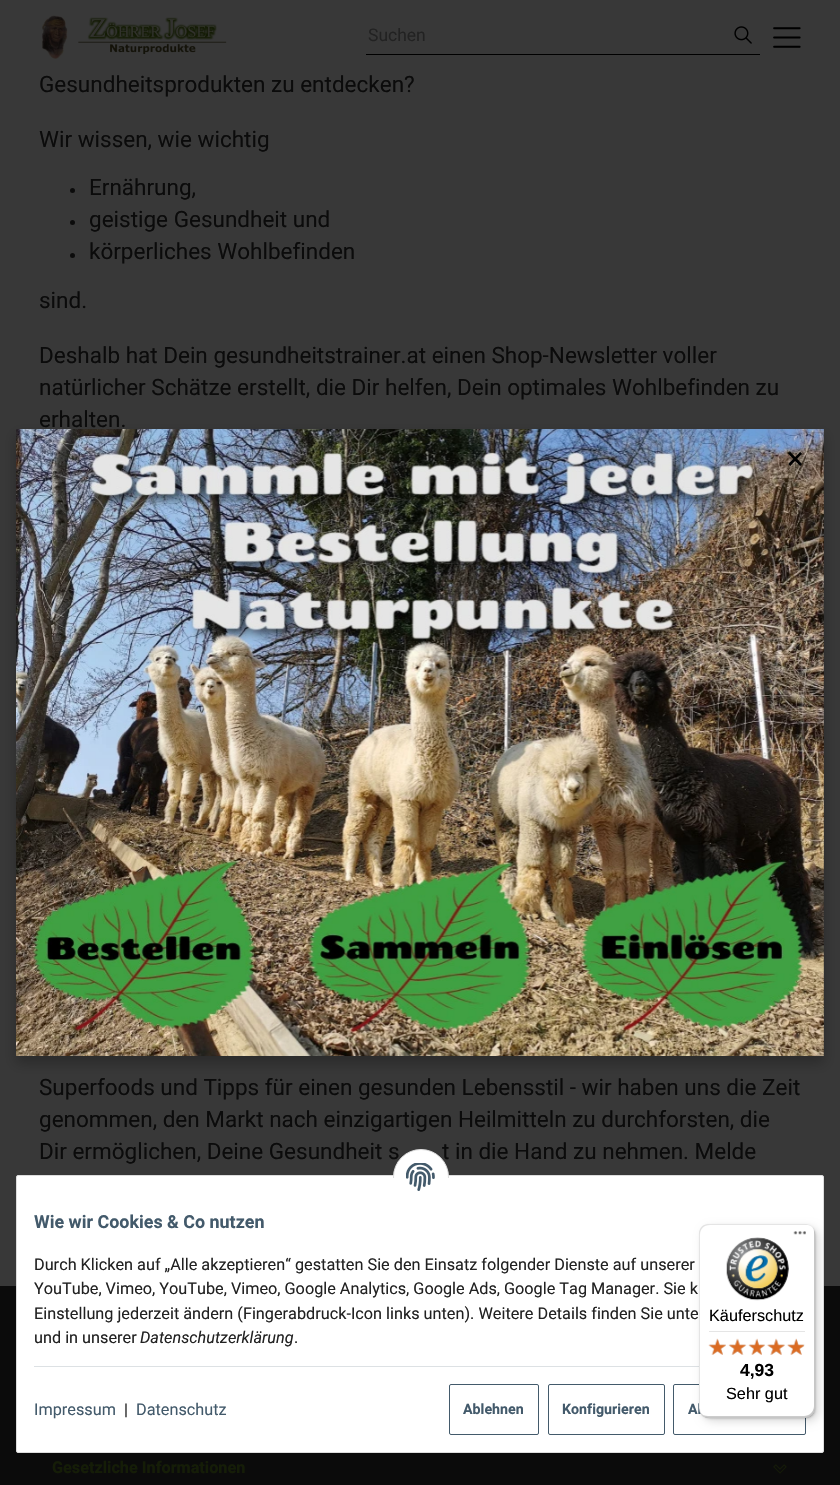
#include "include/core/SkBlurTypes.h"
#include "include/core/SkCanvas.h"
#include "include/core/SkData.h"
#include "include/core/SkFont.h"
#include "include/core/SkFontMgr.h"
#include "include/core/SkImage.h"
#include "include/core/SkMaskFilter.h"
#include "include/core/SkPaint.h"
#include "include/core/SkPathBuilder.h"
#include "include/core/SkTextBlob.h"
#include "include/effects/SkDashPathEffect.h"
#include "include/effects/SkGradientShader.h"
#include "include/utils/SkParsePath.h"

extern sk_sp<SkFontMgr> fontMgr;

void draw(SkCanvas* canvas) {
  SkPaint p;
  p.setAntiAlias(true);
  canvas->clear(SkColorSetRGB(56, 56, 56));
  canvas->drawImageRect(SkImages::DeferredFromEncodedData(SkData::MakeFromFileName("images/1.png")), SkRect::MakeLTRB(41, 15, 227, 60), SkSamplingOptions());
  p.setColor(SK_ColorBLACK);
  canvas->drawRect(SkRect::MakeLTRB(366, 54, 760, 55), p);
  canvas->drawImageRect(SkImages::DeferredFromEncodedData(SkData::MakeFromFileName("images/2.png")), SkRect::MakeLTRB(734, 26, 752, 44), SkSamplingOptions());
  canvas->drawImageRect(SkImages::DeferredFromEncodedData(SkData::MakeFromFileName("images/3.png")), SkRect::MakeLTRB(773, 27, 801, 48), SkSamplingOptions());
  p.setColor(SkColorSetRGB(11, 11, 11));
  canvas->drawCircle(72.5f, 190.5f, 2.5f, p);
  canvas->drawCircle(72.5f, 222.5f, 2.5f, p);
  canvas->drawCircle(72.5f, 255.5f, 2.5f, p);
  p.setColor(SkColorSetARGB(64, 0, 0, 0));
  p.setMaskFilter(SkMaskFilter::MakeBlur(kNormal_SkBlurStyle, 6));
  canvas->drawRect(SkRect::MakeLTRB(16, 435, 824, 1063), p);
  p.setMaskFilter(nullptr);
  canvas->drawImageRect(SkImages::DeferredFromEncodedData(SkData::MakeFromFileName("images/4.png")), SkRect::MakeLTRB(16, 429, 824, 1056), SkSamplingOptions());
  p.setColor(SkColorSetRGB(11, 11, 11));
  canvas->drawRect(SkRect::MakeLTRB(0, 1286, 840, 1485), p);
  p.setColor(SK_ColorWHITE);
  canvas->drawRoundRect(SkRect::MakeLTRB(16.5f, 1175.5f, 823.5f, 1452.5f), 1.5f, 1.5f, p);
  p.setStyle(SkPaint::kStroke_Style);
  p.setStrokeWidth(1);
  p.setColor(SkColorSetRGB(221, 221, 221));
  canvas->drawRoundRect(SkRect::MakeLTRB(16.5f, 1175.5f, 823.5f, 1452.5f), 1.5f, 1.5f, p);
  p.setStyle(SkPaint::kFill_Style);
  p.setColor(SkColorSetRGB(221, 225, 228));
  canvas->drawRect(SkRect::MakeLTRB(34, 1366, 699, 1367), p);
  p.setStyle(SkPaint::kStroke_Style);
  p.setColor(SkColorSetRGB(67, 90, 107));
  canvas->drawRoundRect(SkRect::MakeLTRB(449.5f, 1384.5f, 538.5f, 1434.5f), 1.5f, 1.5f, p);
  canvas->drawRoundRect(SkRect::MakeLTRB(548.5f, 1384.5f, 664.5f, 1434.5f), 1.5f, 1.5f, p);
  canvas->drawRoundRect(SkRect::MakeLTRB(673.5f, 1384.5f, 805.5f, 1434.5f), 1.5f, 1.5f, p);
  p.setStyle(SkPaint::kFill_Style);
  p.setColor(SkColorSetARGB(38, 0, 0, 0));
  p.setMaskFilter(SkMaskFilter::MakeBlur(kNormal_SkBlurStyle, 5));
  canvas->drawRoundRect(SkRect::MakeLTRB(703, 1228, 819, 1421), 10, 10, p);
  p.setMaskFilter(nullptr);
  p.setMaskFilter(SkMaskFilter::MakeBlur(kNormal_SkBlurStyle, 1));
  canvas->drawRoundRect(SkRect::MakeLTRB(700, 1225, 816, 1419), 10, 10, p);
  p.setMaskFilter(nullptr);
  canvas->drawImageRect(SkImages::DeferredFromEncodedData(SkData::MakeFromFileName("images/18.png")), SkRect::MakeLTRB(773, 1464, 787, 1474), SkSamplingOptions());
  SkFont font1(fontMgr->matchFamilyStyle("Roboto", SkFontStyle::Normal()), 17.5f);
  font1.setSubpixel(true);
  p.setColor(SkColorSetRGB(34, 34, 34));
  canvas->drawString("Suchen", 368, 41, font1, p);
  SkFont font2(fontMgr->matchFamilyStyle("Roboto", SkFontStyle::Normal()), 22.5f);
  font2.setSubpixel(true);
  p.setColor(SkColorSetRGB(11, 11, 11));
  canvas->drawString("Gesundheitsprodukten zu entdecken?", 39, 92, font2, p);
  canvas->drawString("Wir wissen, wie wichtig", 39, 147, font2, p);
  canvas->drawString("Ernährung,", 89, 195, font2, p);
  canvas->drawString("geistige Gesundheit und", 89, 227, font2, p);
  canvas->drawString("körperliches Wohlbefinden", 89, 259, font2, p);
  canvas->drawString("sind.", 39, 308, font2, p);
  canvas->drawString("Deshalb hat Dein gesundheitstrainer.at einen Shop-Newsletter voller", 39, 363, font2, p);
  canvas->drawString("natürlicher Schätze erstellt, die Dir helfen, Dein optimales Wohlbefinden zu", 39, 395, font2, p);
  canvas->drawString("erhalten.", 39, 427, font2, p);
  canvas->drawString("Superfoods und Tipps für einen gesunden Lebensstil - wir haben uns die Zeit", 39, 1095, font2, p);
  canvas->drawString("genommen, den Markt nach einzigartigen Heilmitteln zu durchforsten, die", 39, 1127, font2, p);
  canvas->drawString("Dir ermöglichen, Deine Gesundheit s", 39, 1159, font2, p);
  canvas->drawString("t in die Hand zu nehmen. Melde", 442, 1159, font2, p);
  SkFont font3(fontMgr->matchFamilyStyle("Roboto", SkFontStyle::Normal()), 31);
  font3.setSubpixel(true);
  p.setColor(SK_ColorBLACK);
  canvas->drawString("×", 787, 469, font3, p);
  p.setColor(SK_ColorWHITE);
  canvas->drawCircle(421, 1177, 27.5f, p);
  p.setStyle(SkPaint::kStroke_Style);
  p.setColor(SkColorSetRGB(221, 221, 221));
  canvas->drawCircle(421, 1177, 27.5f, p);
  p.setStyle(SkPaint::kFill_Style);
  p.setColor(SK_ColorWHITE);
  canvas->drawRect(SkRect::MakeLTRB(393, 1178, 449, 1205), p);
  canvas->drawImageRect(SkImages::DeferredFromEncodedData(SkData::MakeFromFileName("images/5.png")), SkRect::MakeLTRB(406, 1163, 435, 1191), SkSamplingOptions());
  SkFont font4(fontMgr->matchFamilyStyle("Roboto", SkFontStyle::Bold()), 17.9f);
  font4.setSubpixel(true);
  p.setColor(SkColorSetRGB(67, 90, 107));
  canvas->drawString("Wie wir Cookies & Co nutzen", 34, 1228, font4, p);
  SkFont font5(fontMgr->matchFamilyStyle("Roboto", SkFontStyle::Normal()), 16.25f);
  font5.setSubpixel(true);
  p.setColor(SkColorSetRGB(34, 34, 34));
  canvas->drawString("Durch Klicken auf „Alle akzeptieren“ gestatten Sie den Einsatz folgender Dienste auf unserer", 34, 1270, font5, p);
  canvas->drawString("YouTube, Vimeo, YouTube, Vimeo, Google Analytics, Google Ads, Google Tag Manager. Sie k", 34, 1294, font5, p);
  canvas->drawString("Einstellung jederzeit ändern (Fingerabdruck-Icon links unten). Weitere Details finden Sie unte", 34, 1319, font5, p);
  canvas->drawString("und in unserer", 34, 1343, font5, p);
  SkFont font6(fontMgr->matchFamilyStyle("Roboto", SkFontStyle::Italic()), 16.25f);
  font6.setSubpixel(true);
  canvas->drawString("Datenschutzerklärung", 140, 1343, font6, p);
  canvas->drawString(".", 294, 1343, font5, p);
  p.setColor(SkColorSetRGB(67, 90, 107));
  canvas->drawString("Impressum", 34, 1415, font5, p);
  p.setColor(SkColorSetRGB(34, 34, 34));
  canvas->drawString("|", 124, 1415, font5, p);
  p.setColor(SkColorSetRGB(67, 90, 107));
  canvas->drawString("Datenschutz", 136, 1415, font5, p);
  SkFont font7(fontMgr->matchFamilyStyle("Roboto", SkFontStyle::Bold()), 14.25f);
  font7.setSubpixel(true);
  canvas->drawString("Ablehnen", 463, 1414, font7, p);
  canvas->drawString("Konfigurieren", 562, 1414, font7, p);
  canvas->drawString("Al", 688, 1414, font7, p);
  p.setColor(SK_ColorWHITE);
  canvas->drawRoundRect(SkRect::MakeLTRB(699, 1224, 815, 1418), 10, 10, p);
  p.setColor(SkColorSetARGB(26, 0, 0, 0));
  canvas->drawPath(SkPathBuilder().moveTo(710, 1225).lineTo(806, 1225).cubicTo(808, 1225, 810, 1225, 811, 1226).cubicTo(810, 1225, 807, 1224, 805, 1224).lineTo(709, 1224).cubicTo(703, 1224, 699, 1228, 699, 1234).lineTo(699, 1408).cubicTo(699, 1411, 700, 1414, 703, 1416).cubicTo(701, 1414, 700, 1411, 700, 1409).lineTo(700, 1235).cubicTo(700, 1229, 704, 1225, 710, 1225).close().detach(), p);
  p.setColor(SkColorSetARGB(51, 0, 0, 0));
  canvas->drawPath(SkPathBuilder().moveTo(700, 1412).cubicTo(702, 1416, 705, 1418, 709, 1418).lineTo(805, 1418).cubicTo(811, 1418, 815, 1414, 815, 1408).lineTo(815, 1234).cubicTo(815, 1232, 814, 1230, 813, 1228).cubicTo(814, 1229, 814, 1231, 814, 1232).lineTo(814, 1406).cubicTo(814, 1412, 809, 1416, 804, 1416).lineTo(708, 1416).cubicTo(705, 1416, 702, 1415, 700, 1412).close().detach(), p);
  p.setColor(SkColorSetARGB(51, 50, 50, 50));
  canvas->drawPath(SkPathBuilder().moveTo(701, 1415).cubicTo(703, 1417, 706, 1418, 709, 1418).lineTo(805, 1418).cubicTo(811, 1418, 815, 1414, 815, 1408).lineTo(815, 1234).cubicTo(815, 1232, 814, 1229, 813, 1228).cubicTo(814, 1229, 814, 1231, 814, 1233).lineTo(814, 1407).cubicTo(814, 1412, 810, 1417, 804, 1417).lineTo(708, 1417).cubicTo(705, 1417, 703, 1416, 701, 1415).close().detach(), p);
  p.setColor(SkColorSetARGB(77, 255, 255, 255));
  canvas->drawPath(SkPathBuilder().moveTo(700, 1413).cubicTo(702, 1416, 705, 1418, 709, 1418).lineTo(805, 1418).cubicTo(811, 1418, 815, 1414, 815, 1408).lineTo(815, 1234).cubicTo(815, 1231, 814, 1228, 811, 1226).cubicTo(813, 1228, 814, 1231, 814, 1233).lineTo(814, 1407).cubicTo(814, 1412, 810, 1417, 804, 1417).lineTo(708, 1417).cubicTo(705, 1417, 702, 1415, 700, 1413).close().detach(), p);
  canvas->drawImageRect(SkImages::DeferredFromEncodedData(SkData::MakeFromFileName("images/6.png")), SkRect::MakeLTRB(793, 1231, 806, 1235), SkSamplingOptions());
  canvas->drawImageRect(SkImages::DeferredFromEncodedData(SkData::MakeFromFileName("images/7.png")), SkRect::MakeLTRB(726, 1237, 789, 1301), SkSamplingOptions());
  SkFont font8(fontMgr->matchFamilyStyle("Liberation Sans", SkFontStyle::Normal()), 16.25f);
  font8.setSubpixel(true);
  p.setColor(SK_ColorBLACK);
  canvas->drawString("Käuferschutz", 709, 1321, font8, p);
  p.setColor(SkColorSetRGB(229, 229, 229));
  canvas->drawRect(SkRect::MakeLTRB(709, 1331, 805, 1332), p);
  canvas->drawImageRect(SkImages::DeferredFromEncodedData(SkData::MakeFromFileName("images/13.png")), SkRect::MakeLTRB(709, 1339, 726, 1355), SkSamplingOptions());
  canvas->drawImageRect(SkImages::DeferredFromEncodedData(SkData::MakeFromFileName("images/8.png")), SkRect::MakeLTRB(708, 1338, 726, 1355), SkSamplingOptions());
  canvas->drawImageRect(SkImages::DeferredFromEncodedData(SkData::MakeFromFileName("images/14.png")), SkRect::MakeLTRB(729, 1339, 746, 1355), SkSamplingOptions());
  canvas->drawImageRect(SkImages::DeferredFromEncodedData(SkData::MakeFromFileName("images/9.png")), SkRect::MakeLTRB(728, 1338, 747, 1355), SkSamplingOptions());
  canvas->drawImageRect(SkImages::DeferredFromEncodedData(SkData::MakeFromFileName("images/15.png")), SkRect::MakeLTRB(749, 1339, 765, 1355), SkSamplingOptions());
  canvas->drawImageRect(SkImages::DeferredFromEncodedData(SkData::MakeFromFileName("images/10.png")), SkRect::MakeLTRB(748, 1338, 765, 1355), SkSamplingOptions());
  canvas->drawImageRect(SkImages::DeferredFromEncodedData(SkData::MakeFromFileName("images/16.png")), SkRect::MakeLTRB(767, 1339, 785, 1355), SkSamplingOptions());
  canvas->drawImageRect(SkImages::DeferredFromEncodedData(SkData::MakeFromFileName("images/11.png")), SkRect::MakeLTRB(767, 1338, 785, 1355), SkSamplingOptions());
  canvas->drawImageRect(SkImages::DeferredFromEncodedData(SkData::MakeFromFileName("images/17.png")), SkRect::MakeLTRB(787, 1339, 805, 1355), SkSamplingOptions());
  canvas->drawImageRect(SkImages::DeferredFromEncodedData(SkData::MakeFromFileName("images/12.png")), SkRect::MakeLTRB(787, 1338, 804, 1355), SkSamplingOptions());
  SkFont font9(fontMgr->matchFamilyStyle("Liberation Sans", SkFontStyle::Bold()), 17.5f);
  font9.setSubpixel(true);
  p.setColor(SK_ColorBLACK);
  canvas->drawString("4,93", 740, 1376, font9, p);
  canvas->drawString("Sehr gut", 726, 1399, font8, p);
  SkFont font10(fontMgr->matchFamilyStyle("Roboto", SkFontStyle::Bold()), 16.25f);
  font10.setSubpixel(true);
  p.setColor(SkColorSetRGB(21, 29, 7));
  canvas->drawString("Gesetzliche Informationen", 52, 1473, font10, p);
}
